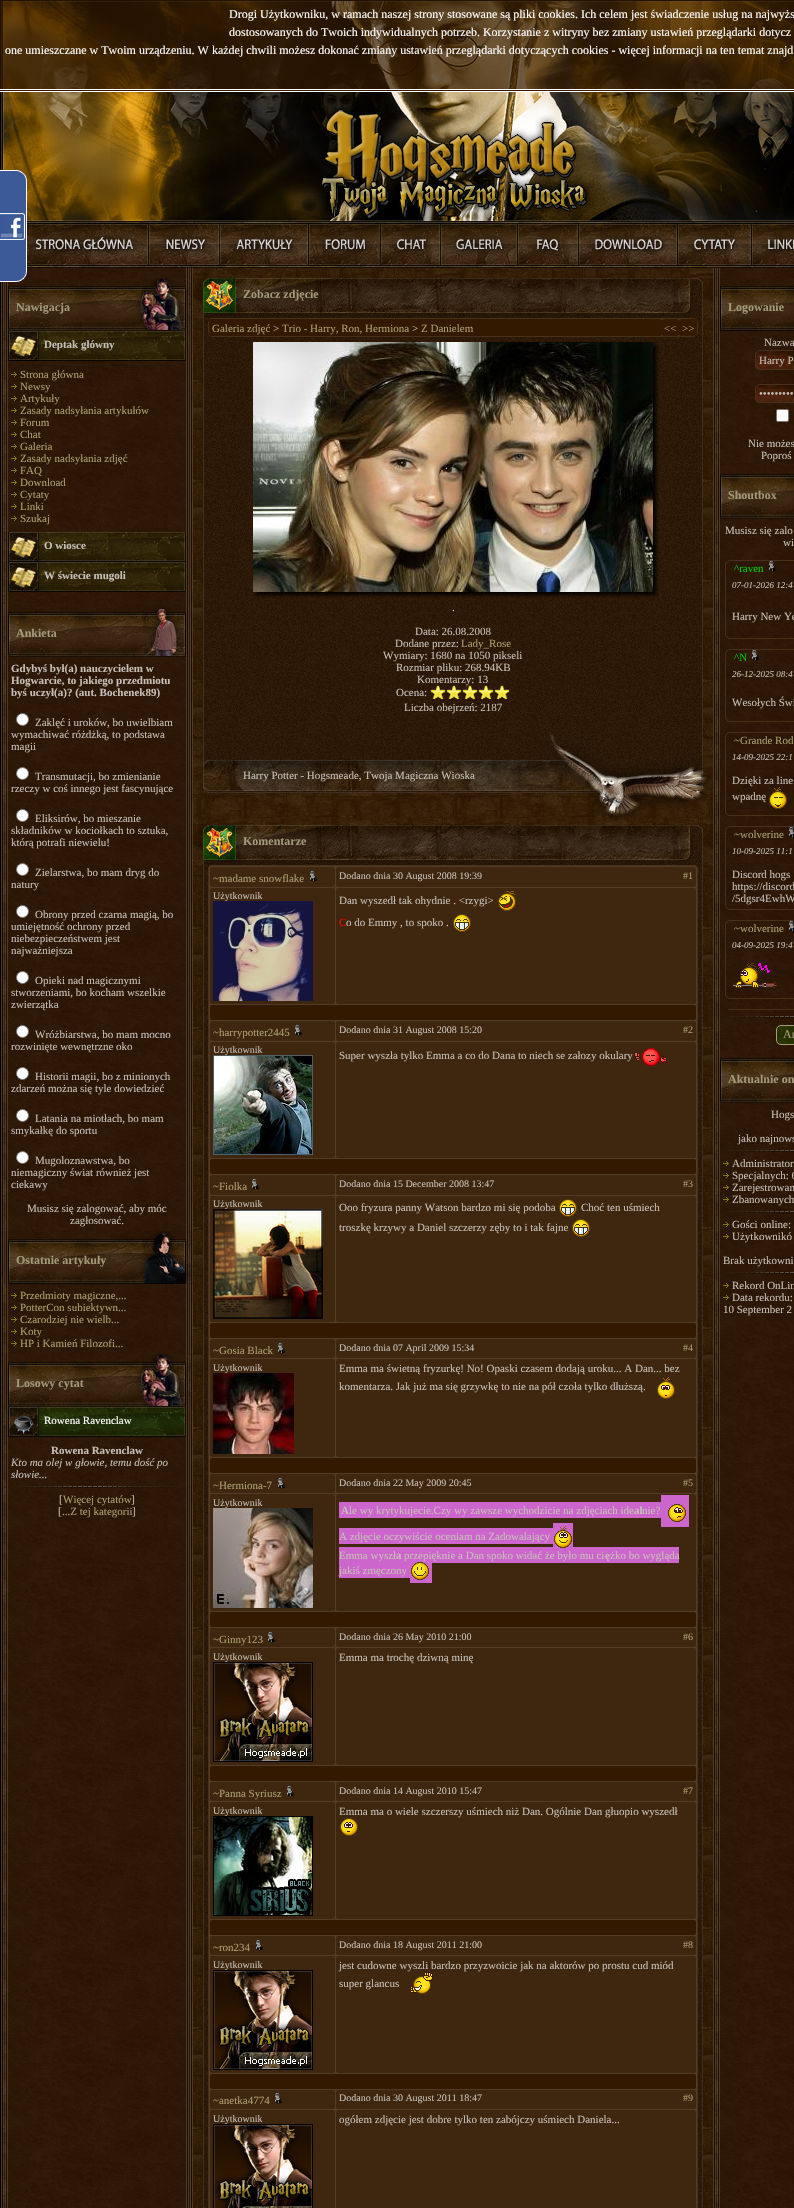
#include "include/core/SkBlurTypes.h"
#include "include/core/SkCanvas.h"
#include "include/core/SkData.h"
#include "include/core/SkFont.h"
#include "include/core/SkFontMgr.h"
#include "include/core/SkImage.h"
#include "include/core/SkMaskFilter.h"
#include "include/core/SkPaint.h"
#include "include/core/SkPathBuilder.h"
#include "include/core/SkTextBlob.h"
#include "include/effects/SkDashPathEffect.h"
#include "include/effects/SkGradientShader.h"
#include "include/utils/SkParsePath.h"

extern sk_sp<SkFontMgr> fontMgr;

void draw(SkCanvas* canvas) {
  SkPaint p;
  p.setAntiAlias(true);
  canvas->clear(SK_ColorWHITE);
  p.setStyle(SkPaint::kStroke_Style);
  p.setStrokeWidth(1);
  p.setColor(SK_ColorBLACK);
  canvas->drawRect(SkRect::MakeLTRB(0.5f, 0.5f, 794.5f, 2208.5f), p);
  canvas->drawImageRect(SkImages::DeferredFromEncodedData(SkData::MakeFromFileName("images/2.png")), SkRect::MakeLTRB(1, 1, 794, 222), SkSamplingOptions());
  p.setStyle(SkPaint::kFill_Style);
  p.setColor(SkColorSetARGB(179, 51, 25, 0));
  canvas->drawRect(SkRect::MakeLTRB(0, 0, 794, 89), p);
  p.setColor(SkColorSetRGB(51, 25, 0));
  canvas->drawRect(SkRect::MakeLTRB(0, 90, 794, 91), p);
  p.setColor(SK_ColorWHITE);
  canvas->drawRect(SkRect::MakeLTRB(0, 89, 794, 90), p);
  canvas->drawRect(SkRect::MakeLTRB(0, 91, 794, 92), p);
  canvas->drawImageRect(SkImages::DeferredFromEncodedData(SkData::MakeFromFileName("images/13.png")), SkRect::MakeLTRB(1, 268, 193, 2208), SkSamplingOptions());
  canvas->drawImageRect(SkImages::DeferredFromEncodedData(SkData::MakeFromFileName("images/14.png")), SkRect::MakeLTRB(1, 278, 193, 331), SkSamplingOptions());
  canvas->drawImageRect(SkImages::DeferredFromEncodedData(SkData::MakeFromFileName("images/1.png")), SkRect::MakeLTRB(0, 170, 27, 282), SkSamplingOptions());
  canvas->drawImageRect(SkImages::DeferredFromEncodedData(SkData::MakeFromFileName("images/3.png")), SkRect::MakeLTRB(27, 222, 149, 268), SkSamplingOptions());
  canvas->drawImageRect(SkImages::DeferredFromEncodedData(SkData::MakeFromFileName("images/4.png")), SkRect::MakeLTRB(149, 222, 220, 268), SkSamplingOptions());
  canvas->drawImageRect(SkImages::DeferredFromEncodedData(SkData::MakeFromFileName("images/5.png")), SkRect::MakeLTRB(220, 222, 309, 268), SkSamplingOptions());
  canvas->drawImageRect(SkImages::DeferredFromEncodedData(SkData::MakeFromFileName("images/6.png")), SkRect::MakeLTRB(309, 222, 381, 268), SkSamplingOptions());
  canvas->drawImageRect(SkImages::DeferredFromEncodedData(SkData::MakeFromFileName("images/7.png")), SkRect::MakeLTRB(381, 222, 441, 268), SkSamplingOptions());
  canvas->drawImageRect(SkImages::DeferredFromEncodedData(SkData::MakeFromFileName("images/8.png")), SkRect::MakeLTRB(441, 222, 518, 268), SkSamplingOptions());
  canvas->drawImageRect(SkImages::DeferredFromEncodedData(SkData::MakeFromFileName("images/9.png")), SkRect::MakeLTRB(518, 222, 579, 268), SkSamplingOptions());
  canvas->drawImageRect(SkImages::DeferredFromEncodedData(SkData::MakeFromFileName("images/10.png")), SkRect::MakeLTRB(579, 222, 678, 268), SkSamplingOptions());
  canvas->drawImageRect(SkImages::DeferredFromEncodedData(SkData::MakeFromFileName("images/11.png")), SkRect::MakeLTRB(678, 222, 752, 268), SkSamplingOptions());
  canvas->drawImageRect(SkImages::DeferredFromEncodedData(SkData::MakeFromFileName("images/12.png")), SkRect::MakeLTRB(752, 222, 794, 268), SkSamplingOptions());
  canvas->drawImageRect(SkImages::DeferredFromEncodedData(SkData::MakeFromFileName("images/15.png")), SkRect::MakeLTRB(1, 331, 193, 361), SkSamplingOptions());
  canvas->drawImageRect(SkImages::DeferredFromEncodedData(SkData::MakeFromFileName("images/16.png")), SkRect::MakeLTRB(11, 372, 17, 377), SkSamplingOptions());
  canvas->drawImageRect(SkImages::DeferredFromEncodedData(SkData::MakeFromFileName("images/17.png")), SkRect::MakeLTRB(11, 384, 17, 389), SkSamplingOptions());
  canvas->drawImageRect(SkImages::DeferredFromEncodedData(SkData::MakeFromFileName("images/18.png")), SkRect::MakeLTRB(11, 396, 17, 401), SkSamplingOptions());
  canvas->drawImageRect(SkImages::DeferredFromEncodedData(SkData::MakeFromFileName("images/19.png")), SkRect::MakeLTRB(11, 408, 17, 413), SkSamplingOptions());
  canvas->drawImageRect(SkImages::DeferredFromEncodedData(SkData::MakeFromFileName("images/20.png")), SkRect::MakeLTRB(11, 420, 17, 425), SkSamplingOptions());
  canvas->drawImageRect(SkImages::DeferredFromEncodedData(SkData::MakeFromFileName("images/21.png")), SkRect::MakeLTRB(11, 432, 17, 437), SkSamplingOptions());
  canvas->drawImageRect(SkImages::DeferredFromEncodedData(SkData::MakeFromFileName("images/22.png")), SkRect::MakeLTRB(11, 444, 17, 449), SkSamplingOptions());
  canvas->drawImageRect(SkImages::DeferredFromEncodedData(SkData::MakeFromFileName("images/23.png")), SkRect::MakeLTRB(11, 456, 17, 461), SkSamplingOptions());
  canvas->drawImageRect(SkImages::DeferredFromEncodedData(SkData::MakeFromFileName("images/24.png")), SkRect::MakeLTRB(11, 468, 17, 473), SkSamplingOptions());
  canvas->drawImageRect(SkImages::DeferredFromEncodedData(SkData::MakeFromFileName("images/25.png")), SkRect::MakeLTRB(11, 480, 17, 485), SkSamplingOptions());
  canvas->drawImageRect(SkImages::DeferredFromEncodedData(SkData::MakeFromFileName("images/26.png")), SkRect::MakeLTRB(11, 492, 17, 497), SkSamplingOptions());
  canvas->drawImageRect(SkImages::DeferredFromEncodedData(SkData::MakeFromFileName("images/27.png")), SkRect::MakeLTRB(11, 504, 17, 509), SkSamplingOptions());
  canvas->drawImageRect(SkImages::DeferredFromEncodedData(SkData::MakeFromFileName("images/28.png")), SkRect::MakeLTRB(11, 516, 17, 521), SkSamplingOptions());
  canvas->drawImageRect(SkImages::DeferredFromEncodedData(SkData::MakeFromFileName("images/29.png")), SkRect::MakeLTRB(3, 532, 193, 562), SkSamplingOptions());
  canvas->drawImageRect(SkImages::DeferredFromEncodedData(SkData::MakeFromFileName("images/15.png")), SkRect::MakeLTRB(1, 562, 193, 592), SkSamplingOptions());
  canvas->drawImageRect(SkImages::DeferredFromEncodedData(SkData::MakeFromFileName("images/30.png")), SkRect::MakeLTRB(1, 604, 193, 657), SkSamplingOptions());
  canvas->drawCircle(22.5f, 719.5f, 6, p);
  p.setStyle(SkPaint::kStroke_Style);
  p.setColor(SkColorSetRGB(118, 118, 118));
  canvas->drawCircle(22.5f, 719.5f, 6, p);
  p.setStyle(SkPaint::kFill_Style);
  p.setColor(SK_ColorWHITE);
  canvas->drawCircle(22.5f, 773.5f, 6, p);
  p.setStyle(SkPaint::kStroke_Style);
  p.setColor(SkColorSetRGB(118, 118, 118));
  canvas->drawCircle(22.5f, 773.5f, 6, p);
  p.setStyle(SkPaint::kFill_Style);
  p.setColor(SK_ColorWHITE);
  canvas->drawCircle(22.5f, 815.5f, 6, p);
  p.setStyle(SkPaint::kStroke_Style);
  p.setColor(SkColorSetRGB(118, 118, 118));
  canvas->drawCircle(22.5f, 815.5f, 6, p);
  p.setStyle(SkPaint::kFill_Style);
  p.setColor(SK_ColorWHITE);
  canvas->drawCircle(22.5f, 869.5f, 6, p);
  p.setStyle(SkPaint::kStroke_Style);
  p.setColor(SkColorSetRGB(118, 118, 118));
  canvas->drawCircle(22.5f, 869.5f, 6, p);
  p.setStyle(SkPaint::kFill_Style);
  p.setColor(SK_ColorWHITE);
  canvas->drawCircle(22.5f, 911.5f, 6, p);
  p.setStyle(SkPaint::kStroke_Style);
  p.setColor(SkColorSetRGB(118, 118, 118));
  canvas->drawCircle(22.5f, 911.5f, 6, p);
  p.setStyle(SkPaint::kFill_Style);
  p.setColor(SK_ColorWHITE);
  canvas->drawCircle(22.5f, 977.5f, 6, p);
  p.setStyle(SkPaint::kStroke_Style);
  p.setColor(SkColorSetRGB(118, 118, 118));
  canvas->drawCircle(22.5f, 977.5f, 6, p);
  p.setStyle(SkPaint::kFill_Style);
  p.setColor(SK_ColorWHITE);
  canvas->drawCircle(22.5f, 1031.5f, 6, p);
  p.setStyle(SkPaint::kStroke_Style);
  p.setColor(SkColorSetRGB(118, 118, 118));
  canvas->drawCircle(22.5f, 1031.5f, 6, p);
  p.setStyle(SkPaint::kFill_Style);
  p.setColor(SK_ColorWHITE);
  canvas->drawCircle(22.5f, 1073.5f, 6, p);
  p.setStyle(SkPaint::kStroke_Style);
  p.setColor(SkColorSetRGB(118, 118, 118));
  canvas->drawCircle(22.5f, 1073.5f, 6, p);
  p.setStyle(SkPaint::kFill_Style);
  p.setColor(SK_ColorWHITE);
  canvas->drawCircle(22.5f, 1115.5f, 6, p);
  p.setStyle(SkPaint::kStroke_Style);
  p.setColor(SkColorSetRGB(118, 118, 118));
  canvas->drawCircle(22.5f, 1115.5f, 6, p);
  p.setStyle(SkPaint::kFill_Style);
  p.setColor(SK_ColorWHITE);
  canvas->drawCircle(22.5f, 1157.5f, 6, p);
  p.setStyle(SkPaint::kStroke_Style);
  p.setColor(SkColorSetRGB(118, 118, 118));
  canvas->drawCircle(22.5f, 1157.5f, 6, p);
  canvas->drawImageRect(SkImages::DeferredFromEncodedData(SkData::MakeFromFileName("images/31.png")), SkRect::MakeLTRB(1, 1231, 193, 1284), SkSamplingOptions());
  canvas->drawImageRect(SkImages::DeferredFromEncodedData(SkData::MakeFromFileName("images/32.png")), SkRect::MakeLTRB(11, 1293, 17, 1298), SkSamplingOptions());
  canvas->drawImageRect(SkImages::DeferredFromEncodedData(SkData::MakeFromFileName("images/33.png")), SkRect::MakeLTRB(11, 1305, 17, 1310), SkSamplingOptions());
  canvas->drawImageRect(SkImages::DeferredFromEncodedData(SkData::MakeFromFileName("images/34.png")), SkRect::MakeLTRB(11, 1317, 17, 1322), SkSamplingOptions());
  canvas->drawImageRect(SkImages::DeferredFromEncodedData(SkData::MakeFromFileName("images/35.png")), SkRect::MakeLTRB(11, 1329, 17, 1334), SkSamplingOptions());
  canvas->drawImageRect(SkImages::DeferredFromEncodedData(SkData::MakeFromFileName("images/36.png")), SkRect::MakeLTRB(11, 1341, 17, 1346), SkSamplingOptions());
  canvas->drawImageRect(SkImages::DeferredFromEncodedData(SkData::MakeFromFileName("images/14.png")), SkRect::MakeLTRB(1, 1354, 193, 1407), SkSamplingOptions());
  canvas->drawImageRect(SkImages::DeferredFromEncodedData(SkData::MakeFromFileName("images/37.png")), SkRect::MakeLTRB(1, 1407, 39, 1437), SkSamplingOptions());
  canvas->drawImageRect(SkImages::DeferredFromEncodedData(SkData::MakeFromFileName("images/38.png")), SkRect::MakeLTRB(39, 1407, 193, 1437), SkSamplingOptions());
  canvas->drawImageRect(SkImages::DeferredFromEncodedData(SkData::MakeFromFileName("images/39.png")), SkRect::MakeLTRB(3, 1486, 192, 1488), SkSamplingOptions());
  canvas->drawImageRect(SkImages::DeferredFromEncodedData(SkData::MakeFromFileName("images/40.png")), SkRect::MakeLTRB(193, 268, 713, 825), SkSamplingOptions());
  canvas->drawImageRect(SkImages::DeferredFromEncodedData(SkData::MakeFromFileName("images/41.png")), SkRect::MakeLTRB(193, 278, 713, 318), SkSamplingOptions());
  canvas->drawImageRect(SkImages::DeferredFromEncodedData(SkData::MakeFromFileName("images/42.png")), SkRect::MakeLTRB(193, 318, 713, 718), SkSamplingOptions());
  p.setStyle(SkPaint::kFill_Style);
  p.setColor(SkColorSetRGB(82, 60, 39));
  canvas->drawRoundRect(SkRect::MakeLTRB(208.5f, 318.5f, 697.5f, 336.5f), 4.5f, 4.5f, p);
  p.setStyle(SkPaint::kStroke_Style);
  p.setColor(SkColorSetRGB(71, 48, 25));
  canvas->drawRoundRect(SkRect::MakeLTRB(208.5f, 318.5f, 697.5f, 336.5f), 4.5f, 4.5f, p);
  p.setStyle(SkPaint::kFill_Style);
  p.setColor(SkColorSetRGB(51, 25, 0));
  canvas->drawRoundRect(SkRect::MakeLTRB(209, 319, 662, 336), 2, 2, p);
  canvas->drawRoundRect(SkRect::MakeLTRB(662, 319, 679, 336), 2, 2, p);
  canvas->drawRoundRect(SkRect::MakeLTRB(679, 319, 697, 336), 2, 2, p);
  p.setColor(SK_ColorBLACK);
  p.setMaskFilter(SkMaskFilter::MakeBlur(kNormal_SkBlurStyle, 2));
  canvas->drawRect(SkRect::MakeLTRB(256, 345, 656, 595), p);
  p.setMaskFilter(nullptr);
  canvas->drawImageRect(SkImages::DeferredFromEncodedData(SkData::MakeFromFileName("images/43.png")), SkRect::MakeLTRB(253, 342, 653, 592), SkSamplingOptions());
  canvas->drawImageRect(SkImages::DeferredFromEncodedData(SkData::MakeFromFileName("images/48.png")), SkRect::MakeLTRB(494, 685, 510, 700), SkSamplingOptions());
  canvas->drawImageRect(SkImages::DeferredFromEncodedData(SkData::MakeFromFileName("images/49.png")), SkRect::MakeLTRB(193, 718, 713, 818), SkSamplingOptions());
  canvas->drawImageRect(SkImages::DeferredFromEncodedData(SkData::MakeFromFileName("images/41.png")), SkRect::MakeLTRB(193, 825, 713, 865), SkSamplingOptions());
  canvas->drawImageRect(SkImages::DeferredFromEncodedData(SkData::MakeFromFileName("images/50.png")), SkRect::MakeLTRB(193, 865, 713, 2208), SkSamplingOptions());
  p.setColor(SkColorSetRGB(82, 60, 39));
  canvas->drawPath(SkPathBuilder().moveTo(213, 865).lineTo(693, 865).cubicTo(696, 865, 698, 867, 698, 870).lineTo(698, 2208).lineTo(208, 2208).lineTo(208, 870).cubicTo(208, 867, 210, 865, 213, 865).close().detach(), p);
  p.setStyle(SkPaint::kStroke_Style);
  p.setColor(SkColorSetRGB(71, 48, 25));
  canvas->drawRoundRect(SkRect::MakeLTRB(208.5f, 865.5f, 697.5f, 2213.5f), 4.5f, 4.5f, p);
  p.setStyle(SkPaint::kFill_Style);
  p.setColor(SkColorSetRGB(63, 39, 15));
  canvas->drawRoundRect(SkRect::MakeLTRB(210, 867, 335, 887), 2, 2, p);
  canvas->drawImageRect(SkImages::DeferredFromEncodedData(SkData::MakeFromFileName("images/51.png")), SkRect::MakeLTRB(309, 870, 318, 882), SkSamplingOptions());
  canvas->drawRoundRect(SkRect::MakeLTRB(336, 867, 696, 887), 2, 2, p);
  canvas->drawRoundRect(SkRect::MakeLTRB(210, 888, 335, 1004), 2, 2, p);
  canvas->drawRoundRect(SkRect::MakeLTRB(336, 888, 696, 1004), 2, 2, p);
  canvas->drawImageRect(SkImages::DeferredFromEncodedData(SkData::MakeFromFileName("images/53.png")), SkRect::MakeLTRB(498, 891, 516, 911), SkSamplingOptions());
  canvas->drawImageRect(SkImages::DeferredFromEncodedData(SkData::MakeFromFileName("images/54.png")), SkRect::MakeLTRB(453, 914, 471, 932), SkSamplingOptions());
  p.setColor(SkColorSetRGB(51, 25, 0));
  canvas->drawRoundRect(SkRect::MakeLTRB(210, 1005, 696, 1020), 2, 2, p);
  p.setColor(SkColorSetRGB(63, 39, 15));
  canvas->drawRoundRect(SkRect::MakeLTRB(210, 1021, 335, 1041), 2, 2, p);
  canvas->drawImageRect(SkImages::DeferredFromEncodedData(SkData::MakeFromFileName("images/51.png")), SkRect::MakeLTRB(294, 1024, 303, 1036), SkSamplingOptions());
  canvas->drawRoundRect(SkRect::MakeLTRB(336, 1021, 696, 1041), 2, 2, p);
  canvas->drawRoundRect(SkRect::MakeLTRB(210, 1042, 335, 1158), 2, 2, p);
  canvas->drawRoundRect(SkRect::MakeLTRB(336, 1042, 696, 1158), 2, 2, p);
  canvas->drawImageRect(SkImages::DeferredFromEncodedData(SkData::MakeFromFileName("images/56.png")), SkRect::MakeLTRB(634, 1048, 667, 1066), SkSamplingOptions());
  p.setColor(SkColorSetRGB(51, 25, 0));
  canvas->drawRoundRect(SkRect::MakeLTRB(210, 1159, 696, 1174), 2, 2, p);
  p.setColor(SkColorSetRGB(63, 39, 15));
  canvas->drawRoundRect(SkRect::MakeLTRB(210, 1175, 335, 1195), 2, 2, p);
  canvas->drawImageRect(SkImages::DeferredFromEncodedData(SkData::MakeFromFileName("images/51.png")), SkRect::MakeLTRB(251, 1178, 260, 1190), SkSamplingOptions());
  canvas->drawRoundRect(SkRect::MakeLTRB(336, 1175, 696, 1195), 2, 2, p);
  canvas->drawRoundRect(SkRect::MakeLTRB(210, 1196, 335, 1322), 2, 2, p);
  canvas->drawRoundRect(SkRect::MakeLTRB(336, 1196, 696, 1322), 2, 2, p);
  canvas->drawImageRect(SkImages::DeferredFromEncodedData(SkData::MakeFromFileName("images/54.png")), SkRect::MakeLTRB(559, 1199, 577, 1217), SkSamplingOptions());
  canvas->drawImageRect(SkImages::DeferredFromEncodedData(SkData::MakeFromFileName("images/54.png")), SkRect::MakeLTRB(572, 1219, 590, 1237), SkSamplingOptions());
  p.setColor(SkColorSetRGB(51, 25, 0));
  canvas->drawRoundRect(SkRect::MakeLTRB(210, 1323, 696, 1338), 2, 2, p);
  p.setColor(SkColorSetRGB(63, 39, 15));
  canvas->drawRoundRect(SkRect::MakeLTRB(210, 1339, 335, 1358), 2, 2, p);
  canvas->drawImageRect(SkImages::DeferredFromEncodedData(SkData::MakeFromFileName("images/51.png")), SkRect::MakeLTRB(277, 1342, 286, 1354), SkSamplingOptions());
  canvas->drawRoundRect(SkRect::MakeLTRB(336, 1339, 696, 1358), 2, 2, p);
  canvas->drawRoundRect(SkRect::MakeLTRB(210, 1359, 335, 1457), 2, 2, p);
  canvas->drawRoundRect(SkRect::MakeLTRB(336, 1359, 696, 1457), 2, 2, p);
  canvas->drawImageRect(SkImages::DeferredFromEncodedData(SkData::MakeFromFileName("images/59.png")), SkRect::MakeLTRB(657, 1377, 675, 1399), SkSamplingOptions());
  p.setColor(SkColorSetRGB(51, 25, 0));
  canvas->drawRoundRect(SkRect::MakeLTRB(210, 1458, 696, 1473), 2, 2, p);
  p.setColor(SkColorSetRGB(63, 39, 15));
  canvas->drawRoundRect(SkRect::MakeLTRB(210, 1474, 335, 1493), 2, 2, p);
  canvas->drawImageRect(SkImages::DeferredFromEncodedData(SkData::MakeFromFileName("images/51.png")), SkRect::MakeLTRB(277, 1477, 286, 1489), SkSamplingOptions());
  canvas->drawRoundRect(SkRect::MakeLTRB(336, 1474, 696, 1493), 2, 2, p);
  canvas->drawRoundRect(SkRect::MakeLTRB(210, 1494, 335, 1611), 2, 2, p);
  canvas->drawRoundRect(SkRect::MakeLTRB(336, 1494, 696, 1611), 2, 2, p);
  p.setColor(SkColorSetRGB(204, 102, 204));
  canvas->drawRect(SkRect::MakeLTRB(339, 1502, 661, 1518), p);
  canvas->drawRect(SkRect::MakeLTRB(661, 1495, 689, 1527), p);
  canvas->drawImageRect(SkImages::DeferredFromEncodedData(SkData::MakeFromFileName("images/61.png")), SkRect::MakeLTRB(668, 1504, 686, 1522), SkSamplingOptions());
  canvas->drawRect(SkRect::MakeLTRB(339, 1528, 553, 1544), p);
  canvas->drawRect(SkRect::MakeLTRB(553, 1523, 573, 1547), p);
  canvas->drawRect(SkRect::MakeLTRB(396, 1547, 679, 1563), p);
  canvas->drawImageRect(SkImages::DeferredFromEncodedData(SkData::MakeFromFileName("images/62.png")), SkRect::MakeLTRB(554, 1526, 572, 1548), SkSamplingOptions());
  canvas->drawRect(SkRect::MakeLTRB(339, 1547, 396, 1562), p);
  canvas->drawRect(SkRect::MakeLTRB(339, 1562, 410, 1578), p);
  canvas->drawRect(SkRect::MakeLTRB(410, 1563, 432, 1583), p);
  canvas->drawImageRect(SkImages::DeferredFromEncodedData(SkData::MakeFromFileName("images/63.png")), SkRect::MakeLTRB(411, 1562, 429, 1580), SkSamplingOptions());
  p.setColor(SkColorSetRGB(51, 25, 0));
  canvas->drawRoundRect(SkRect::MakeLTRB(210, 1612, 696, 1627), 2, 2, p);
  p.setColor(SkColorSetRGB(63, 39, 15));
  canvas->drawRoundRect(SkRect::MakeLTRB(210, 1628, 335, 1647), 2, 2, p);
  canvas->drawImageRect(SkImages::DeferredFromEncodedData(SkData::MakeFromFileName("images/51.png")), SkRect::MakeLTRB(267, 1631, 276, 1643), SkSamplingOptions());
  canvas->drawRoundRect(SkRect::MakeLTRB(336, 1628, 696, 1647), 2, 2, p);
  canvas->drawRoundRect(SkRect::MakeLTRB(210, 1648, 335, 1765), 2, 2, p);
  canvas->drawRoundRect(SkRect::MakeLTRB(336, 1648, 696, 1765), 2, 2, p);
  p.setColor(SkColorSetRGB(51, 25, 0));
  canvas->drawRoundRect(SkRect::MakeLTRB(210, 1766, 696, 1781), 2, 2, p);
  p.setColor(SkColorSetRGB(63, 39, 15));
  canvas->drawRoundRect(SkRect::MakeLTRB(210, 1782, 335, 1801), 2, 2, p);
  canvas->drawImageRect(SkImages::DeferredFromEncodedData(SkData::MakeFromFileName("images/51.png")), SkRect::MakeLTRB(286, 1785, 295, 1797), SkSamplingOptions());
  canvas->drawRoundRect(SkRect::MakeLTRB(336, 1782, 696, 1801), 2, 2, p);
  canvas->drawRoundRect(SkRect::MakeLTRB(210, 1802, 335, 1919), 2, 2, p);
  canvas->drawRoundRect(SkRect::MakeLTRB(336, 1802, 696, 1919), 2, 2, p);
  canvas->drawImageRect(SkImages::DeferredFromEncodedData(SkData::MakeFromFileName("images/66.png")), SkRect::MakeLTRB(340, 1818, 358, 1836), SkSamplingOptions());
  p.setColor(SkColorSetRGB(51, 25, 0));
  canvas->drawRoundRect(SkRect::MakeLTRB(210, 1920, 696, 1935), 2, 2, p);
  p.setColor(SkColorSetRGB(63, 39, 15));
  canvas->drawRoundRect(SkRect::MakeLTRB(210, 1936, 335, 1955), 2, 2, p);
  canvas->drawImageRect(SkImages::DeferredFromEncodedData(SkData::MakeFromFileName("images/51.png")), SkRect::MakeLTRB(255, 1939, 264, 1951), SkSamplingOptions());
  canvas->drawRoundRect(SkRect::MakeLTRB(336, 1936, 696, 1955), 2, 2, p);
  canvas->drawRoundRect(SkRect::MakeLTRB(210, 1956, 335, 2073), 2, 2, p);
  canvas->drawRoundRect(SkRect::MakeLTRB(336, 1956, 696, 2073), 2, 2, p);
  canvas->drawImageRect(SkImages::DeferredFromEncodedData(SkData::MakeFromFileName("images/67.png")), SkRect::MakeLTRB(410, 1972, 433, 1994), SkSamplingOptions());
  p.setColor(SkColorSetRGB(51, 25, 0));
  canvas->drawRoundRect(SkRect::MakeLTRB(210, 2074, 696, 2089), 2, 2, p);
  p.setColor(SkColorSetRGB(63, 39, 15));
  canvas->drawRoundRect(SkRect::MakeLTRB(210, 2090, 335, 2109), 2, 2, p);
  canvas->drawImageRect(SkImages::DeferredFromEncodedData(SkData::MakeFromFileName("images/51.png")), SkRect::MakeLTRB(274, 2092, 283, 2104), SkSamplingOptions());
  canvas->drawRoundRect(SkRect::MakeLTRB(336, 2090, 696, 2109), 2, 2, p);
  canvas->drawPath(SkPathBuilder().moveTo(212, 2110).lineTo(333, 2110).cubicTo(334, 2110, 335, 2111, 335, 2112).lineTo(335, 2208).lineTo(210, 2208).lineTo(210, 2112).cubicTo(210, 2111, 211, 2110, 212, 2110).close().detach(), p);
  canvas->drawPath(SkPathBuilder().moveTo(338, 2110).lineTo(694, 2110).cubicTo(695, 2110, 696, 2111, 696, 2112).lineTo(696, 2208).lineTo(336, 2208).lineTo(336, 2112).cubicTo(336, 2111, 337, 2110, 338, 2110).close().detach(), p);
  canvas->drawImageRect(SkImages::DeferredFromEncodedData(SkData::MakeFromFileName("images/69.png")), SkRect::MakeLTRB(713, 268, 794, 2208), SkSamplingOptions());
  canvas->drawImageRect(SkImages::DeferredFromEncodedData(SkData::MakeFromFileName("images/70.png")), SkRect::MakeLTRB(713, 278, 794, 331), SkSamplingOptions());
  canvas->drawImageRect(SkImages::DeferredFromEncodedData(SkData::MakeFromFileName("images/71.png")), SkRect::MakeLTRB(755, 350, 794, 370), SkSamplingOptions());
  p.setStyle(SkPaint::kStroke_Style);
  p.setColor(SkColorSetRGB(71, 48, 25));
  canvas->drawRoundRect(SkRect::MakeLTRB(755.5f, 350.5f, 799.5f, 369.5f), 4.5f, 4.5f, p);
  canvas->drawImageRect(SkImages::DeferredFromEncodedData(SkData::MakeFromFileName("images/72.png")), SkRect::MakeLTRB(755, 384, 794, 403), SkSamplingOptions());
  canvas->drawRoundRect(SkRect::MakeLTRB(755.5f, 384.5f, 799.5f, 402.5f), 4.5f, 4.5f, p);
  p.setStyle(SkPaint::kFill_Style);
  p.setColor(SK_ColorWHITE);
  canvas->drawRoundRect(SkRect::MakeLTRB(776.5f, 409.5f, 788.5f, 421.5f), 1.5f, 1.5f, p);
  p.setStyle(SkPaint::kStroke_Style);
  p.setColor(SkColorSetRGB(118, 118, 118));
  canvas->drawRoundRect(SkRect::MakeLTRB(776.5f, 409.5f, 788.5f, 421.5f), 1.5f, 1.5f, p);
  canvas->drawImageRect(SkImages::DeferredFromEncodedData(SkData::MakeFromFileName("images/73.png")), SkRect::MakeLTRB(713, 466, 794, 519), SkSamplingOptions());
  p.setColor(SkColorSetRGB(71, 48, 25));
  canvas->drawRoundRect(SkRect::MakeLTRB(725.5f, 560.5f, 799.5f, 638.5f), 4.5f, 4.5f, p);
  canvas->drawImageRect(SkImages::DeferredFromEncodedData(SkData::MakeFromFileName("images/74.png")), SkRect::MakeLTRB(768, 560, 777, 572), SkSamplingOptions());
  canvas->drawRoundRect(SkRect::MakeLTRB(725.5f, 649.5f, 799.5f, 721.5f), 4.5f, 4.5f, p);
  canvas->drawImageRect(SkImages::DeferredFromEncodedData(SkData::MakeFromFileName("images/75.png")), SkRect::MakeLTRB(751, 649, 760, 661), SkSamplingOptions());
  canvas->drawRoundRect(SkRect::MakeLTRB(725.5f, 732.5f, 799.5f, 815.5f), 4.5f, 4.5f, p);
  canvas->drawImageRect(SkImages::DeferredFromEncodedData(SkData::MakeFromFileName("images/76.png")), SkRect::MakeLTRB(769, 787, 787, 809), SkSamplingOptions());
  canvas->drawRoundRect(SkRect::MakeLTRB(725.5f, 826.5f, 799.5f, 909.5f), 4.5f, 4.5f, p);
  canvas->drawImageRect(SkImages::DeferredFromEncodedData(SkData::MakeFromFileName("images/77.png")), SkRect::MakeLTRB(789, 826, 794, 838), SkSamplingOptions());
  canvas->drawRoundRect(SkRect::MakeLTRB(725.5f, 920.5f, 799.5f, 998.5f), 4.5f, 4.5f, p);
  canvas->drawImageRect(SkImages::DeferredFromEncodedData(SkData::MakeFromFileName("images/78.png")), SkRect::MakeLTRB(789, 920, 794, 932), SkSamplingOptions());
  canvas->drawImageRect(SkImages::DeferredFromEncodedData(SkData::MakeFromFileName("images/79.png")), SkRect::MakeLTRB(733, 963, 777, 988), SkSamplingOptions());
  canvas->drawImageRect(SkImages::DeferredFromEncodedData(SkData::MakeFromFileName("images/83.png")), SkRect::MakeLTRB(713, 1050, 794, 1103), SkSamplingOptions());
  canvas->drawImageRect(SkImages::DeferredFromEncodedData(SkData::MakeFromFileName("images/81.png")), SkRect::MakeLTRB(715, 1150, 794, 1152), SkSamplingOptions());
  canvas->drawImageRect(SkImages::DeferredFromEncodedData(SkData::MakeFromFileName("images/84.png")), SkRect::MakeLTRB(723, 1161, 729, 1166), SkSamplingOptions());
  canvas->drawImageRect(SkImages::DeferredFromEncodedData(SkData::MakeFromFileName("images/85.png")), SkRect::MakeLTRB(723, 1173, 729, 1178), SkSamplingOptions());
  canvas->drawImageRect(SkImages::DeferredFromEncodedData(SkData::MakeFromFileName("images/86.png")), SkRect::MakeLTRB(723, 1185, 729, 1190), SkSamplingOptions());
  canvas->drawImageRect(SkImages::DeferredFromEncodedData(SkData::MakeFromFileName("images/87.png")), SkRect::MakeLTRB(723, 1197, 729, 1202), SkSamplingOptions());
  canvas->drawImageRect(SkImages::DeferredFromEncodedData(SkData::MakeFromFileName("images/88.png")), SkRect::MakeLTRB(713, 1211, 794, 1213), SkSamplingOptions());
  canvas->drawImageRect(SkImages::DeferredFromEncodedData(SkData::MakeFromFileName("images/89.png")), SkRect::MakeLTRB(723, 1222, 729, 1227), SkSamplingOptions());
  canvas->drawImageRect(SkImages::DeferredFromEncodedData(SkData::MakeFromFileName("images/90.png")), SkRect::MakeLTRB(723, 1234, 729, 1239), SkSamplingOptions());
  canvas->drawImageRect(SkImages::DeferredFromEncodedData(SkData::MakeFromFileName("images/81.png")), SkRect::MakeLTRB(715, 1272, 794, 1274), SkSamplingOptions());
  canvas->drawImageRect(SkImages::DeferredFromEncodedData(SkData::MakeFromFileName("images/91.png")), SkRect::MakeLTRB(723, 1283, 729, 1288), SkSamplingOptions());
  canvas->drawImageRect(SkImages::DeferredFromEncodedData(SkData::MakeFromFileName("images/92.png")), SkRect::MakeLTRB(723, 1295, 729, 1300), SkSamplingOptions());
  SkFont font1(fontMgr->matchFamilyStyle("Liberation Serif", SkFontStyle::Normal()), 12);
  font1.setSubpixel(true);
  p.setStyle(SkPaint::kFill_Style);
  p.setColor(SK_ColorWHITE);
  canvas->drawString("Drogi Użytkowniku, w ramach naszej strony stosowane są pliki cookies. Ich celem jest świadczenie usług na najwyżs", 229, 18, font1, p);
  canvas->drawString("dostosowanych do Twoich indywidualnych potrzeb. Korzystanie z witryny bez zmiany ustawień przeglądarki dotycz", 229, 36, font1, p);
  canvas->drawString("one umieszczane w Twoim urządzeniu. W każdej chwili możesz dokonać zmiany ustawień przeglądarki dotyczących cookies - więcej informacji na ten temat znajd", 5, 54, font1, p);
  SkFont font2(fontMgr->matchFamilyStyle("Liberation Serif", SkFontStyle::Bold()), 12);
  font2.setSubpixel(true);
  p.setColor(SkColorSetRGB(163, 154, 121));
  canvas->drawString("Nawigacja", 16, 311, font2, p);
  SkFont font3(fontMgr->matchFamilyStyle("Liberation Serif", SkFontStyle::Bold()), 11);
  font3.setSubpixel(true);
  p.setColor(SkColorSetRGB(198, 191, 183));
  canvas->drawString("Deptak główny", 44, 348, font3, p);
  SkFont font4(fontMgr->matchFamilyStyle("Liberation Serif", SkFontStyle::Normal()), 11);
  font4.setSubpixel(true);
  p.setColor(SkColorSetRGB(171, 158, 110));
  canvas->drawString("Strona główna", 20, 378, font4, p);
  canvas->drawString("Newsy", 20, 390, font4, p);
  canvas->drawString("Artykuły", 20, 402, font4, p);
  canvas->drawString("Zasady nadsyłania artykułów", 20, 414, font4, p);
  canvas->drawString("Forum", 20, 426, font4, p);
  canvas->drawString("Chat", 20, 438, font4, p);
  canvas->drawString("Galeria", 20, 450, font4, p);
  canvas->drawString("Zasady nadsyłania zdjęć", 20, 462, font4, p);
  canvas->drawString("FAQ", 20, 474, font4, p);
  canvas->drawString("Download", 20, 486, font4, p);
  canvas->drawString("Cytaty", 20, 498, font4, p);
  canvas->drawString("Linki", 20, 510, font4, p);
  canvas->drawString("Szukaj", 20, 522, font4, p);
  p.setColor(SkColorSetRGB(198, 191, 183));
  canvas->drawString("O wiosce", 44, 549, font3, p);
  canvas->drawString("W świecie mugoli", 44, 579, font3, p);
  p.setColor(SkColorSetRGB(163, 154, 121));
  canvas->drawString("Ankieta", 16, 637, font2, p);
  p.setColor(SkColorSetRGB(198, 191, 183));
  canvas->drawString("Gdybyś był(a) nauczycielem w", 11, 672, font3, p);
  canvas->drawString("Hogwarcie, to jakiego przedmiotu", 11, 684, font3, p);
  canvas->drawString("byś uczył(a)? (aut. Bochenek89)", 11, 696, font3, p);
  canvas->drawString("Zaklęć i uroków, bo uwielbiam", 35, 726, font4, p);
  canvas->drawString("wymachiwać różdżką, to podstawa", 11, 738, font4, p);
  canvas->drawString("magii", 11, 750, font4, p);
  canvas->drawString("Transmutacji, bo zmienianie", 35, 780, font4, p);
  canvas->drawString("rzeczy w coś innego jest fascynujące", 11, 792, font4, p);
  canvas->drawString("Eliksirów, bo mieszanie", 35, 822, font4, p);
  canvas->drawString("składników w kociołkach to sztuka,", 11, 834, font4, p);
  canvas->drawString("którą potrafi niewielu!", 11, 846, font4, p);
  canvas->drawString("Zielarstwa, bo mam dryg do", 35, 876, font4, p);
  canvas->drawString("natury", 11, 888, font4, p);
  canvas->drawString("Obrony przed czarna magią, bo", 35, 918, font4, p);
  canvas->drawString("umiejętność ochrony przed", 11, 930, font4, p);
  canvas->drawString("niebezpieczeństwem jest", 11, 942, font4, p);
  canvas->drawString("najważniejsza", 11, 954, font4, p);
  canvas->drawString("Opieki nad magicznymi", 35, 984, font4, p);
  canvas->drawString("stworzeniami, bo kocham wszelkie", 11, 996, font4, p);
  canvas->drawString("zwierzątka", 11, 1008, font4, p);
  canvas->drawString("Wróżbiarstwa, bo mam mocno", 35, 1038, font4, p);
  canvas->drawString("rozwinięte wewnętrzne oko", 11, 1050, font4, p);
  canvas->drawString("Historii magii, bo z minionych", 35, 1080, font4, p);
  canvas->drawString("zdarzeń można się tyle dowiedzieć", 11, 1092, font4, p);
  canvas->drawString("Latania na miotłach, bo mam", 35, 1122, font4, p);
  canvas->drawString("smykałkę do sportu", 11, 1134, font4, p);
  canvas->drawString("Mugoloznawstwa, bo", 35, 1164, font4, p);
  canvas->drawString("niemagiczny świat również jest", 11, 1176, font4, p);
  canvas->drawString("ciekawy", 11, 1188, font4, p);
  canvas->drawString("Musisz się zalogować, aby móc", 27, 1212, font4, p);
  canvas->drawString("zagłosować.", 70, 1224, font4, p);
  p.setColor(SkColorSetRGB(163, 154, 121));
  canvas->drawString("Ostatnie artykuły", 16, 1264, font2, p);
  p.setColor(SkColorSetRGB(171, 158, 110));
  canvas->drawString("Przedmioty magiczne,...", 20, 1299, font4, p);
  canvas->drawString("PotterCon subiektywn...", 20, 1311, font4, p);
  canvas->drawString("Czarodziej nie wielb...", 20, 1323, font4, p);
  canvas->drawString("Koty", 20, 1335, font4, p);
  canvas->drawString("HP i Kamień Filozofi...", 20, 1347, font4, p);
  p.setColor(SkColorSetRGB(163, 154, 121));
  canvas->drawString("Losowy cytat", 16, 1387, font2, p);
  p.setColor(SK_ColorWHITE);
  canvas->drawString("Rowena Ravenclaw", 44, 1424, font4, p);
  p.setColor(SkColorSetRGB(198, 191, 183));
  canvas->drawString("Rowena Ravenclaw", 51, 1454, font3, p);
  SkFont font5(fontMgr->matchFamilyStyle("Liberation Serif", SkFontStyle::Italic()), 11);
  font5.setSubpixel(true);
  canvas->drawString("Kto ma olej w głowie, temu dość po", 11, 1466, font5, p);
  canvas->drawString("słowie...", 11, 1478, font5, p);
  canvas->drawString("[", 59, 1503, font4, p);
  p.setColor(SkColorSetRGB(171, 158, 110));
  canvas->drawString("Więcej cytatów", 63, 1503, font4, p);
  p.setColor(SkColorSetRGB(198, 191, 183));
  canvas->drawString("]", 131, 1503, font4, p);
  canvas->drawString("[", 58, 1515, font4, p);
  p.setColor(SkColorSetRGB(171, 158, 110));
  canvas->drawString("...Z tej kategorii", 62, 1515, font4, p);
  p.setColor(SkColorSetRGB(198, 191, 183));
  canvas->drawString("]", 132, 1515, font4, p);
  p.setColor(SkColorSetRGB(163, 154, 121));
  canvas->drawString("Zobacz zdjęcie", 243, 298, font2, p);
  p.setColor(SkColorSetRGB(171, 158, 110));
  canvas->drawString("Galeria zdjęć", 212, 332, font4, p);
  p.setColor(SkColorSetRGB(198, 191, 183));
  canvas->drawString(">", 273, 332, font4, p);
  p.setColor(SkColorSetRGB(171, 158, 110));
  canvas->drawString("Trio - Harry, Ron, Hermiona", 282, 332, font4, p);
  p.setColor(SkColorSetRGB(198, 191, 183));
  canvas->drawString(">", 412, 332, font4, p);
  p.setColor(SkColorSetRGB(171, 158, 110));
  canvas->drawString("Z Danielem", 421, 332, font4, p);
  canvas->drawString("<<", 664, 332, font4, p);
  canvas->drawString(">>", 682, 332, font4, p);
  p.setColor(SkColorSetRGB(198, 191, 183));
  canvas->drawString(".", 452, 611, font4, p);
  canvas->drawString("Data: 26.08.2008", 415, 635, font4, p);
  canvas->drawString("Dodane przez:", 395, 647, font4, p);
  p.setColor(SkColorSetRGB(171, 158, 110));
  canvas->drawString("Lady_Rose", 461, 647, font4, p);
  p.setColor(SkColorSetRGB(198, 191, 183));
  canvas->drawString("Wymiary: 1680 na 1050 pikseli", 383, 659, font4, p);
  canvas->drawString("Rozmiar pliku: 268.94KB", 396, 671, font4, p);
  canvas->drawString("Komentarzy: 13", 417, 683, font4, p);
  canvas->drawString("Ocena:", 396, 696, font4, p);
  canvas->drawImageRect(SkImages::DeferredFromEncodedData(SkData::MakeFromFileName("images/44.png")), SkRect::MakeLTRB(430, 685, 446, 700), SkSamplingOptions());
  canvas->drawImageRect(SkImages::DeferredFromEncodedData(SkData::MakeFromFileName("images/45.png")), SkRect::MakeLTRB(446, 685, 462, 700), SkSamplingOptions());
  canvas->drawImageRect(SkImages::DeferredFromEncodedData(SkData::MakeFromFileName("images/46.png")), SkRect::MakeLTRB(462, 685, 478, 700), SkSamplingOptions());
  canvas->drawImageRect(SkImages::DeferredFromEncodedData(SkData::MakeFromFileName("images/47.png")), SkRect::MakeLTRB(478, 685, 494, 700), SkSamplingOptions());
  canvas->drawString("Liczba obejrzeń: 2187", 404, 711, font4, p);
  canvas->drawString("Harry Potter - Hogsmeade, Twoja Magiczna Wioska", 243, 779, font4, p);
  p.setColor(SkColorSetRGB(163, 154, 121));
  canvas->drawString("Komentarze", 243, 845, font2, p);
  p.setColor(SkColorSetRGB(171, 158, 110));
  canvas->drawString("~madame snowflake", 213, 882, font4, p);
  SkFont font6(fontMgr->matchFamilyStyle("Liberation Serif", SkFontStyle::Normal()), 10);
  font6.setSubpixel(true);
  p.setColor(SkColorSetRGB(198, 191, 183));
  canvas->drawString("Dodano dnia 30 August 2008 19:39", 339, 879, font6, p);
  p.setColor(SkColorSetRGB(171, 158, 110));
  canvas->drawString("#1", 683, 879, font6, p);
  p.setColor(SkColorSetRGB(198, 191, 183));
  canvas->drawString("Użytkownik", 213, 899, font6, p);
  canvas->drawImageRect(SkImages::DeferredFromEncodedData(SkData::MakeFromFileName("images/52.png")), SkRect::MakeLTRB(213, 901, 313, 1001), SkSamplingOptions());
  canvas->drawString("Dan wyszedł tak ohydnie . <rzygi>", 339, 904, font4, p);
  p.setColor(SkColorSetRGB(255, 0, 0));
  canvas->drawString("C", 339, 926, font4, p);
  p.setColor(SkColorSetRGB(198, 191, 183));
  canvas->drawString("o do Emmy , to spoko .", 346, 926, font4, p);
  p.setColor(SkColorSetRGB(171, 158, 110));
  canvas->drawString("~harrypotter2445", 213, 1036, font4, p);
  p.setColor(SkColorSetRGB(198, 191, 183));
  canvas->drawString("Dodano dnia 31 August 2008 15:20", 339, 1033, font6, p);
  p.setColor(SkColorSetRGB(171, 158, 110));
  canvas->drawString("#2", 683, 1033, font6, p);
  p.setColor(SkColorSetRGB(198, 191, 183));
  canvas->drawString("Użytkownik", 213, 1053, font6, p);
  canvas->drawImageRect(SkImages::DeferredFromEncodedData(SkData::MakeFromFileName("images/55.png")), SkRect::MakeLTRB(213, 1055, 313, 1155), SkSamplingOptions());
  canvas->drawString("Super wyszła tylko Emma a co do Dana to niech se załozy okulary", 339, 1059, font4, p);
  p.setColor(SkColorSetRGB(171, 158, 110));
  canvas->drawString("~Fiolka", 213, 1190, font4, p);
  p.setColor(SkColorSetRGB(198, 191, 183));
  canvas->drawString("Dodano dnia 15 December 2008 13:47", 339, 1187, font6, p);
  p.setColor(SkColorSetRGB(171, 158, 110));
  canvas->drawString("#3", 683, 1187, font6, p);
  p.setColor(SkColorSetRGB(198, 191, 183));
  canvas->drawString("Użytkownik", 213, 1207, font6, p);
  canvas->drawImageRect(SkImages::DeferredFromEncodedData(SkData::MakeFromFileName("images/57.png")), SkRect::MakeLTRB(213, 1209, 323, 1319), SkSamplingOptions());
  canvas->drawString("Ooo fryzura panny Watson bardzo mi się podoba", 339, 1211, font4, p);
  canvas->drawString("Choć ten uśmiech", 581, 1211, font4, p);
  canvas->drawString("troszkę krzywy a Daniel szczerzy zęby to i tak fajne", 339, 1231, font4, p);
  p.setColor(SkColorSetRGB(171, 158, 110));
  canvas->drawString("~Gosia Black", 213, 1354, font4, p);
  p.setColor(SkColorSetRGB(198, 191, 183));
  canvas->drawString("Dodano dnia 07 April 2009 15:34", 339, 1351, font6, p);
  p.setColor(SkColorSetRGB(171, 158, 110));
  canvas->drawString("#4", 683, 1351, font6, p);
  p.setColor(SkColorSetRGB(198, 191, 183));
  canvas->drawString("Użytkownik", 213, 1371, font6, p);
  canvas->drawImageRect(SkImages::DeferredFromEncodedData(SkData::MakeFromFileName("images/58.png")), SkRect::MakeLTRB(213, 1373, 294, 1454), SkSamplingOptions());
  canvas->drawString("Emma ma świetną fryzurkę! No! Opaski czasem dodają uroku... A Dan... bez", 339, 1372, font4, p);
  canvas->drawString("komentarza. Jak już ma się grzywkę to nie na pół czoła tylko dłuższą.", 339, 1390, font4, p);
  p.setColor(SkColorSetRGB(171, 158, 110));
  canvas->drawString("~Hermiona-7", 213, 1489, font4, p);
  p.setColor(SkColorSetRGB(198, 191, 183));
  canvas->drawString("Dodano dnia 22 May 2009 20:45", 339, 1486, font6, p);
  p.setColor(SkColorSetRGB(171, 158, 110));
  canvas->drawString("#5", 683, 1486, font6, p);
  p.setColor(SkColorSetRGB(198, 191, 183));
  canvas->drawString("Użytkownik", 213, 1506, font6, p);
  canvas->drawImageRect(SkImages::DeferredFromEncodedData(SkData::MakeFromFileName("images/60.png")), SkRect::MakeLTRB(213, 1508, 313, 1608), SkSamplingOptions());
  canvas->drawString("A", 341, 1514, font3, p);
  canvas->drawString("le wy krytykujecie.Czy wy zawsze wychodzicie na zdjęciach ide", 349, 1514, font4, p);
  canvas->drawString("al", 634, 1514, font3, p);
  canvas->drawString("nie?", 642, 1514, font4, p);
  canvas->drawString("A zdjęcie oczywiście oceniam na Zadowalający", 339, 1540, font4, p);
  canvas->drawString("Emma wyszł", 339, 1559, font4, p);
  canvas->drawString("a", 396, 1559, font3, p);
  canvas->drawString("przepięknie a Dan spoko widać że było mu ci", 404, 1559, font4, p);
  canvas->drawString("ę", 605, 1559, font3, p);
  canvas->drawString("żko bo wygląda", 610, 1559, font4, p);
  canvas->drawString("jakiś zmęczony", 339, 1574, font4, p);
  p.setColor(SkColorSetRGB(171, 158, 110));
  canvas->drawString("~Ginny123", 213, 1643, font4, p);
  p.setColor(SkColorSetRGB(198, 191, 183));
  canvas->drawString("Dodano dnia 26 May 2010 21:00", 339, 1640, font6, p);
  p.setColor(SkColorSetRGB(171, 158, 110));
  canvas->drawString("#6", 683, 1640, font6, p);
  p.setColor(SkColorSetRGB(198, 191, 183));
  canvas->drawString("Użytkownik", 213, 1660, font6, p);
  canvas->drawImageRect(SkImages::DeferredFromEncodedData(SkData::MakeFromFileName("images/64.png")), SkRect::MakeLTRB(213, 1662, 313, 1762), SkSamplingOptions());
  canvas->drawString("Emma ma trochę dziwną minę", 339, 1661, font4, p);
  p.setColor(SkColorSetRGB(171, 158, 110));
  canvas->drawString("~Panna Syriusz", 213, 1797, font4, p);
  p.setColor(SkColorSetRGB(198, 191, 183));
  canvas->drawString("Dodano dnia 14 August 2010 15:47", 339, 1794, font6, p);
  p.setColor(SkColorSetRGB(171, 158, 110));
  canvas->drawString("#7", 683, 1794, font6, p);
  p.setColor(SkColorSetRGB(198, 191, 183));
  canvas->drawString("Użytkownik", 213, 1814, font6, p);
  canvas->drawImageRect(SkImages::DeferredFromEncodedData(SkData::MakeFromFileName("images/65.png")), SkRect::MakeLTRB(213, 1816, 313, 1916), SkSamplingOptions());
  canvas->drawString("Emma ma o wiele szczerszy uśmiech niż Dan. Ogólnie Dan głuopio wyszedł", 339, 1815, font4, p);
  p.setColor(SkColorSetRGB(171, 158, 110));
  canvas->drawString("~ron234", 213, 1951, font4, p);
  p.setColor(SkColorSetRGB(198, 191, 183));
  canvas->drawString("Dodano dnia 18 August 2011 21:00", 339, 1948, font6, p);
  p.setColor(SkColorSetRGB(171, 158, 110));
  canvas->drawString("#8", 683, 1948, font6, p);
  p.setColor(SkColorSetRGB(198, 191, 183));
  canvas->drawString("Użytkownik", 213, 1968, font6, p);
  canvas->drawImageRect(SkImages::DeferredFromEncodedData(SkData::MakeFromFileName("images/64.png")), SkRect::MakeLTRB(213, 1970, 313, 2070), SkSamplingOptions());
  canvas->drawString("jest cudowne wyszli bardzo przyzwoicie jak na aktorów po prostu cud miód", 339, 1969, font4, p);
  canvas->drawString("super glancus", 339, 1987, font4, p);
  p.setColor(SkColorSetRGB(171, 158, 110));
  canvas->drawString("~anetka4774", 213, 2104, font4, p);
  p.setColor(SkColorSetRGB(198, 191, 183));
  canvas->drawString("Dodano dnia 30 August 2011 18:47", 339, 2101, font6, p);
  p.setColor(SkColorSetRGB(171, 158, 110));
  canvas->drawString("#9", 683, 2101, font6, p);
  p.setColor(SkColorSetRGB(198, 191, 183));
  canvas->drawString("Użytkownik", 213, 2122, font6, p);
  canvas->drawImageRect(SkImages::DeferredFromEncodedData(SkData::MakeFromFileName("images/68.png")), SkRect::MakeLTRB(213, 2124, 313, 2208), SkSamplingOptions());
  canvas->drawString("ogółem zdjęcie jest dobre tylko ten zabójczy uśmiech Daniela...", 339, 2123, font4, p);
  p.setColor(SkColorSetRGB(163, 154, 121));
  canvas->drawString("Logowanie", 728, 311, font2, p);
  p.setColor(SkColorSetRGB(198, 191, 183));
  canvas->drawString("Nazwa", 764, 346, font4, p);
  canvas->drawString("Harry P", 759, 364, font4, p);
  canvas->drawString("•••••••••", 759, 397, font4, p);
  canvas->drawString("Nie możes", 748, 447, font4, p);
  canvas->drawString("Poproś", 761, 459, font4, p);
  p.setColor(SkColorSetRGB(163, 154, 121));
  canvas->drawString("Shoutbox", 728, 499, font2, p);
  p.setColor(SkColorSetRGB(198, 191, 183));
  canvas->drawString("Musisz się zalo", 725, 534, font4, p);
  canvas->drawString("wi", 783, 546, font4, p);
  p.setColor(SkColorSetRGB(0, 204, 0));
  canvas->drawString("^raven", 734, 572, font4, p);
  SkFont font7(fontMgr->matchFamilyStyle("Liberation Serif", SkFontStyle::Italic()), 9);
  font7.setSubpixel(true);
  p.setColor(SkColorSetRGB(198, 191, 183));
  canvas->drawString("07-01-2026 12:4", 732, 588, font7, p);
  canvas->drawString("Harry New Ye", 732, 620, font4, p);
  p.setColor(SkColorSetRGB(0, 204, 0));
  canvas->drawString("^N", 734, 661, font4, p);
  p.setColor(SkColorSetRGB(198, 191, 183));
  canvas->drawString("26-12-2025 08:4", 732, 677, font7, p);
  canvas->drawString("Wesołych Świ", 732, 706, font4, p);
  p.setColor(SkColorSetRGB(171, 158, 110));
  canvas->drawString("~Grande Rod", 734, 744, font4, p);
  p.setColor(SkColorSetRGB(198, 191, 183));
  canvas->drawString("14-09-2025 22:1", 732, 760, font7, p);
  canvas->drawString("Dzięki za line", 732, 784, font4, p);
  canvas->drawString("wpadnę", 732, 800, font4, p);
  p.setColor(SkColorSetRGB(171, 158, 110));
  canvas->drawString("~wolverine", 734, 838, font4, p);
  p.setColor(SkColorSetRGB(198, 191, 183));
  canvas->drawString("10-09-2025 11:1", 732, 854, font7, p);
  canvas->drawString("Discord hogs", 732, 878, font4, p);
  canvas->drawString("https://discord", 732, 890, font4, p);
  canvas->drawString("/5dgsr4EwhW", 732, 902, font4, p);
  p.setColor(SkColorSetRGB(171, 158, 110));
  canvas->drawString("~wolverine", 734, 932, font4, p);
  p.setColor(SkColorSetRGB(198, 191, 183));
  canvas->drawString("04-09-2025 19:4", 732, 948, font7, p);
  p.setColor(SkColorSetRGB(163, 154, 121));
  canvas->drawString("Aktualnie on", 728, 1083, font2, p);
  canvas->save();
  canvas->clipRect(SkRect::MakeLTRB(723, 560, 794, 1010));
  p.setStyle(SkPaint::kStroke_Style);
  p.setColor(SkColorSetRGB(71, 48, 25));
  canvas->drawRoundRect(SkRect::MakeLTRB(725.5f, 1009.5f, 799.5f, 1079.5f), 4.5f, 4.5f, p);
  canvas->restore();
  canvas->drawImageRect(SkImages::DeferredFromEncodedData(SkData::MakeFromFileName("images/82.png")), SkRect::MakeLTRB(776, 1025, 794, 1045), SkSamplingOptions());
  p.setColor(SkColorSetRGB(163, 154, 121));
  canvas->drawRoundRect(SkRect::MakeLTRB(776.5f, 1025.5f, 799.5f, 1044.5f), 4.5f, 4.5f, p);
  p.setStyle(SkPaint::kFill_Style);
  canvas->drawString("Ar", 783, 1038, font1, p);
  canvas->drawImageRect(SkImages::DeferredFromEncodedData(SkData::MakeFromFileName("images/81.png")), SkRect::MakeLTRB(715, 1016, 794, 1018), SkSamplingOptions());
  canvas->drawImageRect(SkImages::DeferredFromEncodedData(SkData::MakeFromFileName("images/80.png")), SkRect::MakeLTRB(770, 1009, 773, 1010), SkSamplingOptions());
  p.setColor(SkColorSetRGB(198, 191, 183));
  canvas->drawString("Hogs", 771, 1118, font4, p);
  canvas->drawString("jako najnows", 738, 1142, font4, p);
  canvas->drawString("Administrator", 732, 1167, font4, p);
  canvas->drawString("Specjalnych: 6", 732, 1179, font4, p);
  canvas->drawString("Zarejestrowan", 732, 1191, font4, p);
  canvas->drawString("Zbanowanych", 732, 1203, font4, p);
  canvas->drawString("Gości online:", 732, 1228, font4, p);
  canvas->drawString("Użytkownikó", 732, 1240, font4, p);
  canvas->drawString("Brak użytkowni", 723, 1264, font4, p);
  canvas->drawString("Rekord OnLin", 732, 1289, font4, p);
  canvas->drawString("Data rekordu:", 732, 1301, font4, p);
  canvas->drawString("10 September 2", 723, 1313, font4, p);
}
